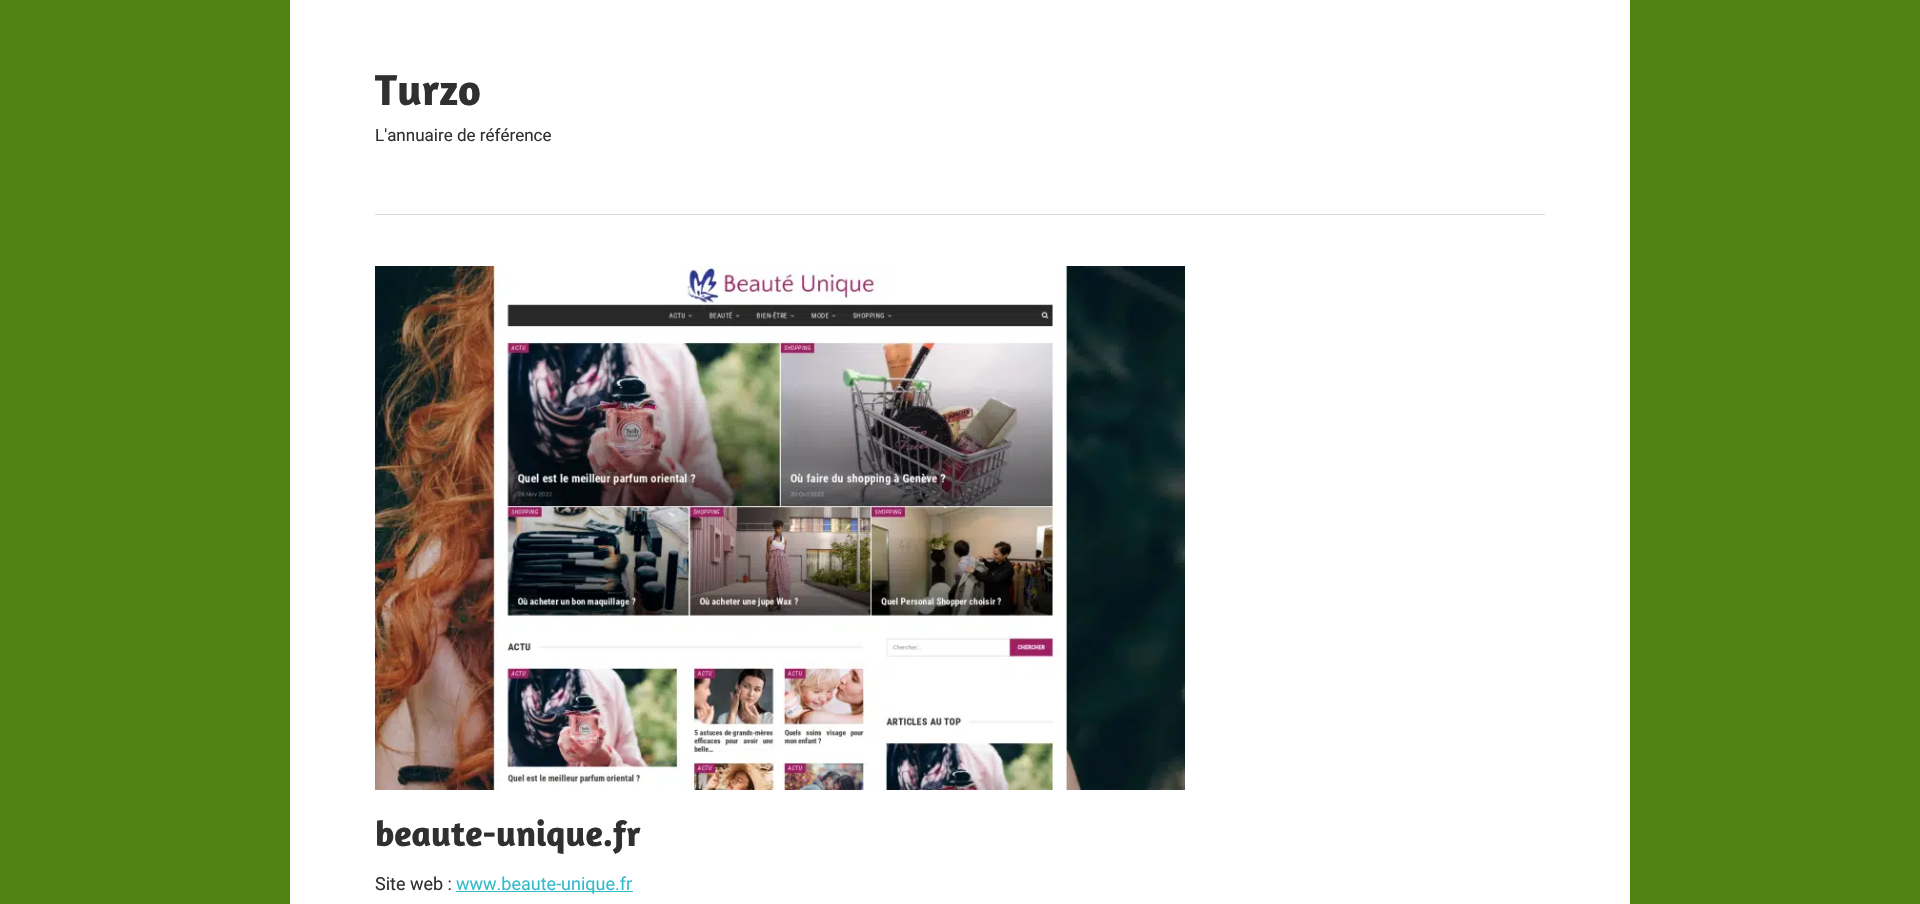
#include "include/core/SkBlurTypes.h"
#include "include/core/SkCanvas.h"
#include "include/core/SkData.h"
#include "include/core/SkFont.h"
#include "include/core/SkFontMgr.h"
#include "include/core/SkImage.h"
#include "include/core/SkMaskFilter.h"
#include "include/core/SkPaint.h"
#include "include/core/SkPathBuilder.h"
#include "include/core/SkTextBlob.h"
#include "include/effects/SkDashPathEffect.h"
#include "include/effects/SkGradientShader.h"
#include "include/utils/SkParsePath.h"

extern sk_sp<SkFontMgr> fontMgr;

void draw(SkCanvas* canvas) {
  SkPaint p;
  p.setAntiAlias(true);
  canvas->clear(SkColorSetRGB(80, 131, 19));
  p.setColor(SK_ColorWHITE);
  canvas->drawRect(SkRect::MakeLTRB(290, 0, 1630, 904), p);
  p.setColor(SkColorSetRGB(217, 217, 217));
  canvas->drawRect(SkRect::MakeLTRB(375, 214, 1545, 215), p);
  canvas->drawImageRect(SkImages::DeferredFromEncodedData(SkData::MakeFromFileName("images/1.png")), SkRect::MakeLTRB(375, 266, 1185, 790), SkSamplingOptions());
  p.setColor(SkColorSetRGB(51, 187, 204));
  canvas->drawRect(SkRect::MakeLTRB(456, 891, 633, 892), p);
  SkFont font1(fontMgr->matchFamilyStyle("Amaranth", SkFontStyle::Bold()), 44);
  font1.setSubpixel(true);
  p.setColor(SkColorSetRGB(48, 48, 48));
  canvas->drawString("Turzo", 375, 105, font1, p);
  SkFont font2(fontMgr->matchFamilyStyle("Roboto", SkFontStyle::Normal()), 17);
  font2.setSubpixel(true);
  canvas->drawString("L'annuaire de référence", 375, 141, font2, p);
  SkFont font3(fontMgr->matchFamilyStyle("Amaranth", SkFontStyle::Bold()), 36);
  font3.setSubpixel(true);
  canvas->drawString("beaute-unique.fr", 375, 846, font3, p);
  SkFont font4(fontMgr->matchFamilyStyle("Roboto", SkFontStyle::Normal()), 18);
  font4.setSubpixel(true);
  canvas->drawString("Site web :", 375, 890, font4, p);
  p.setColor(SkColorSetRGB(51, 187, 204));
  canvas->drawString("www.beaute-unique.fr", 456, 890, font4, p);
}
